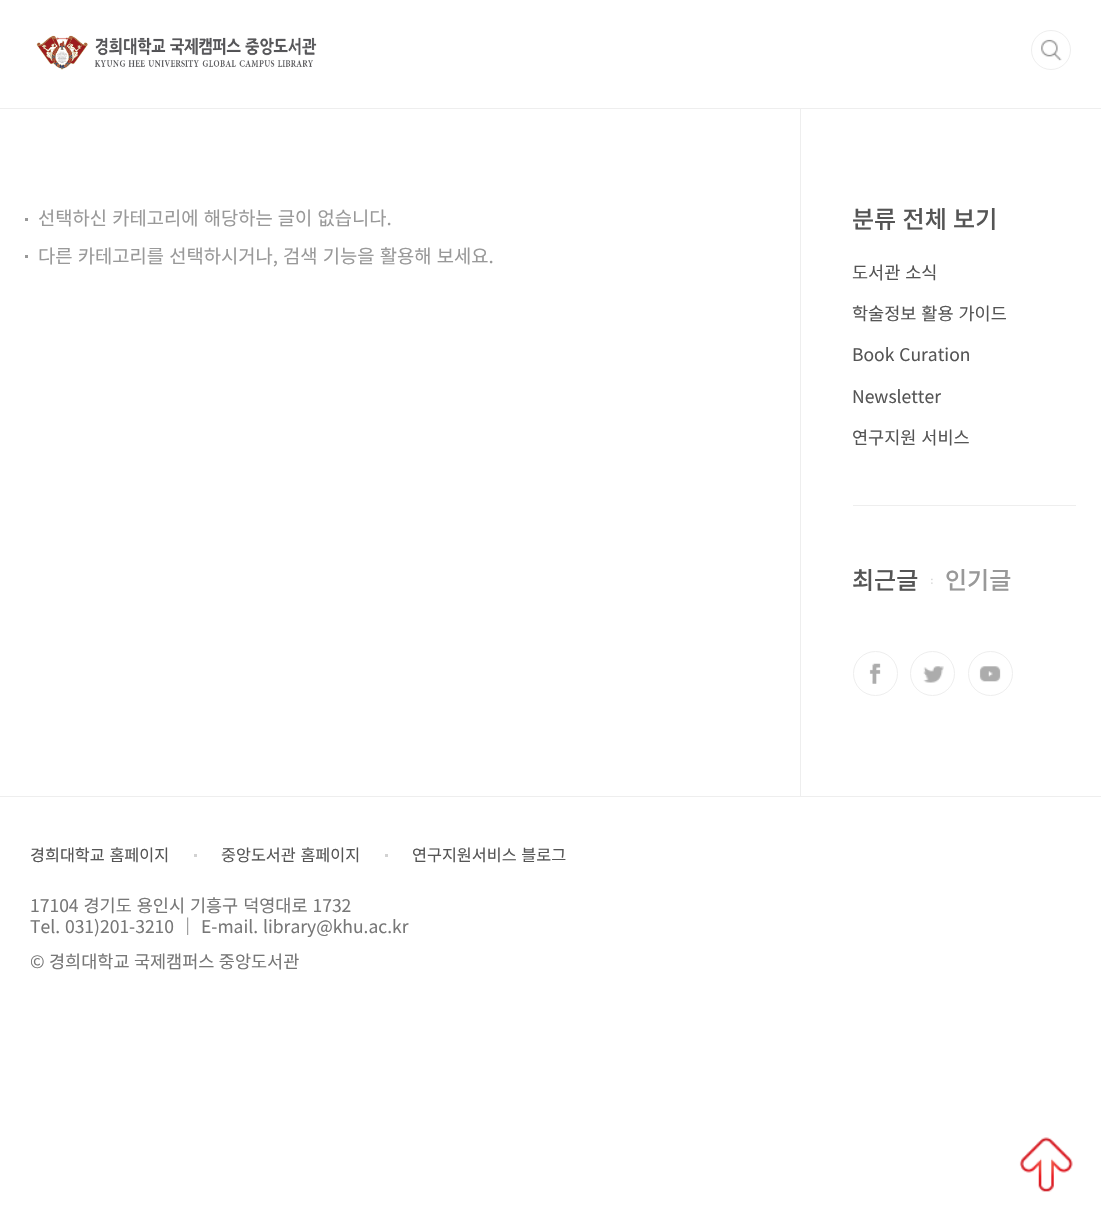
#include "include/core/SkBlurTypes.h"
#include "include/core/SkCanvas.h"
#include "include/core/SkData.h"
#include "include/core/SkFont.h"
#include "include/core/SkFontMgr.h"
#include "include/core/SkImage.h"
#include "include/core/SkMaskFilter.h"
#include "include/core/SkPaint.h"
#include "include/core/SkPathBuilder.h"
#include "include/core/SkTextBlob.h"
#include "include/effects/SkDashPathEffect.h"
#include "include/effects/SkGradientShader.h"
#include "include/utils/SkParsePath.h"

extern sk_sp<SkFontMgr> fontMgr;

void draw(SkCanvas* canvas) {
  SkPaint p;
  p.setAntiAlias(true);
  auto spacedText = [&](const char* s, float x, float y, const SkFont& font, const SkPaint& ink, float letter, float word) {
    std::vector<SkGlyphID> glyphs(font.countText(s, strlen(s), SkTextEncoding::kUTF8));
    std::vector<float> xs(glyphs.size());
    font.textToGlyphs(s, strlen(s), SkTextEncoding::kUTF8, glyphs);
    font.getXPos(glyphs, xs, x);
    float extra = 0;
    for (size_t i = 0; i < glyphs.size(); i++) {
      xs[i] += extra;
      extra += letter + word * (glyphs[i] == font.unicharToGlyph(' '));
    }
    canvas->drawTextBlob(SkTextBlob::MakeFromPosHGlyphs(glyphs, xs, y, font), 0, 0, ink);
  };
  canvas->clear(SK_ColorWHITE);
  p.setColor(SkColorSetRGB(238, 238, 238));
  canvas->drawRect(SkRect::MakeLTRB(0, 108, 1101, 109), p);
  canvas->drawImageRect(SkImages::DeferredFromEncodedData(SkData::MakeFromFileName("images/1.png")), SkRect::MakeLTRB(36, 35, 317, 70), SkSamplingOptions());
  p.setStyle(SkPaint::kStroke_Style);
  p.setStrokeWidth(1);
  canvas->drawRoundRect(SkRect::MakeLTRB(1033.5f, 31.5f, 1069.5f, 68.5f), 18, 18, p);
  p.setStyle(SkPaint::kFill_Style);
  p.setColor(SK_ColorWHITE);
  canvas->drawCircle(1051, 50, 20, p);
  canvas->drawImageRect(SkImages::DeferredFromEncodedData(SkData::MakeFromFileName("images/2.png")), SkRect::MakeLTRB(1041, 39, 1062, 61), SkSamplingOptions());
  p.setStyle(SkPaint::kStroke_Style);
  p.setColor(SkColorSetRGB(238, 238, 238));
  canvas->drawCircle(1051, 50, 19.5f, p);
  p.setStyle(SkPaint::kFill_Style);
  p.setColor(SkColorSetRGB(153, 153, 153));
  canvas->drawRect(SkRect::MakeLTRB(25, 218, 28, 221), p);
  canvas->drawRect(SkRect::MakeLTRB(25, 255, 28, 258), p);
  p.setColor(SkColorSetRGB(238, 238, 238));
  canvas->drawRect(SkRect::MakeLTRB(800, 109, 801, 796), p);
  canvas->drawRect(SkRect::MakeLTRB(853, 505, 1076, 506), p);
  canvas->drawImageRect(SkImages::DeferredFromEncodedData(SkData::MakeFromFileName("images/3.png")), SkRect::MakeLTRB(931, 578, 933, 584), SkSamplingOptions());
  canvas->drawImageRect(SkImages::DeferredFromEncodedData(SkData::MakeFromFileName("images/4.png")), SkRect::MakeLTRB(869, 663, 881, 684), SkSamplingOptions());
  p.setStyle(SkPaint::kStroke_Style);
  canvas->drawCircle(875.5f, 673.5f, 22, p);
  canvas->drawImageRect(SkImages::DeferredFromEncodedData(SkData::MakeFromFileName("images/5.png")), SkRect::MakeLTRB(923, 666, 944, 683), SkSamplingOptions());
  canvas->drawCircle(932.5f, 673.5f, 22, p);
  canvas->drawImageRect(SkImages::DeferredFromEncodedData(SkData::MakeFromFileName("images/6.png")), SkRect::MakeLTRB(979, 666, 1001, 682), SkSamplingOptions());
  canvas->drawCircle(990.5f, 673.5f, 22, p);
  p.setStyle(SkPaint::kFill_Style);
  canvas->drawRect(SkRect::MakeLTRB(0, 796, 1101, 797), p);
  p.setColor(SkColorSetRGB(210, 210, 210));
  canvas->drawRect(SkRect::MakeLTRB(194, 854, 197, 857), p);
  canvas->drawRect(SkRect::MakeLTRB(385, 854, 388, 857), p);
  canvas->drawImageRect(SkImages::DeferredFromEncodedData(SkData::MakeFromFileName("images/7.png")), SkRect::MakeLTRB(1019, 1137, 1073, 1192), SkSamplingOptions());
  SkFont font1(fontMgr->matchFamilyStyle("Noto Sans KR", SkFontStyle::Normal()), 18.75f);
  font1.setSubpixel(true);
  p.setColor(SkColorSetRGB(153, 153, 153));
  spacedText("선택하신 카테고리에 해당하는 글이 없습니다.", 38, 225, font1, p, 0, 1);
  spacedText("다른 카테고리를 선택하시거나, 검색 기능을 활용해 보세요.", 38, 263, font1, p, 0, 1);
  SkFont font2(fontMgr->matchFamilyStyle("Noto Sans KR", SkFontStyle(500, SkFontStyle::kNormal_Width, SkFontStyle::kUpright_Slant)), 24);
  font2.setSubpixel(true);
  p.setColor(SkColorSetRGB(85, 85, 85));
  spacedText("분류 전체 보기", 852, 228, font2, p, 0, 1);
  SkFont font3(fontMgr->matchFamilyStyle("Noto Sans KR", SkFontStyle::Normal()), 17.5f);
  font3.setSubpixel(true);
  spacedText("도서관 소식", 852, 279, font3, p, 0, 1);
  spacedText("학술정보 활용 가이드", 852, 320, font3, p, 0, 1);
  spacedText("Book Curation", 852, 361, font3, p, 0, 1);
  canvas->drawString("Newsletter", 852, 403, font3, p);
  spacedText("연구지원 서비스", 852, 444, font3, p, 0, 1);
  canvas->drawString("최근글", 852, 589, font2, p);
  p.setColor(SkColorSetRGB(153, 153, 153));
  canvas->drawString("인기글", 945, 589, font2, p);
  SkFont font4(fontMgr->matchFamilyStyle("Noto Sans KR", SkFontStyle::Normal()), 16.25f);
  font4.setSubpixel(true);
  p.setColor(SkColorSetRGB(85, 85, 85));
  spacedText("경희대학교 홈페이지", 30, 861, font4, p, 0, 1);
  spacedText("중앙도서관 홈페이지", 221, 861, font4, p, 0, 1);
  spacedText("연구지원서비스 블로그", 412, 861, font4, p, 0, 1);
  p.setColor(SkColorSetRGB(119, 119, 119));
  spacedText("17104 경기도 용인시 기흥구 덕영대로 1732", 30, 912, font3, p, 0, 1);
  spacedText("Tel. 031)201-3210", 30, 933, font3, p, 0, 1);
  canvas->drawString("｜", 179, 933, font3, p);
  spacedText("E-mail. library@khu.ac.kr", 201, 933, font3, p, 0, 1);
  spacedText("© 경희대학교 국제캠퍼스 중앙도서관", 30, 968, font3, p, 0, 0.5f);
}
